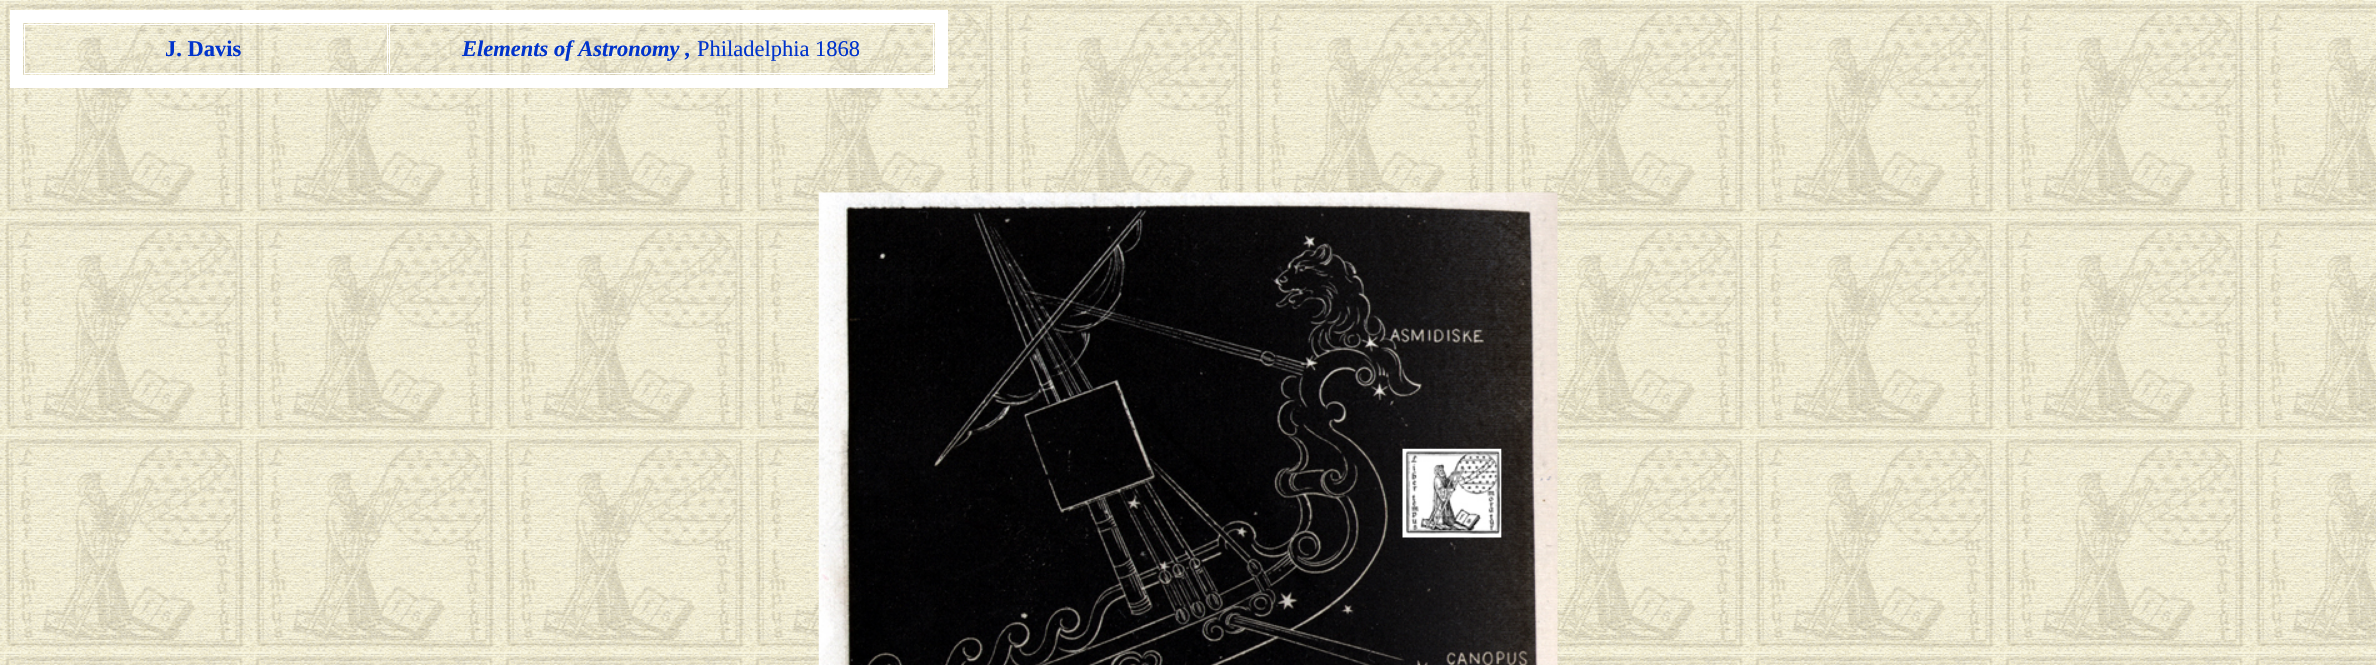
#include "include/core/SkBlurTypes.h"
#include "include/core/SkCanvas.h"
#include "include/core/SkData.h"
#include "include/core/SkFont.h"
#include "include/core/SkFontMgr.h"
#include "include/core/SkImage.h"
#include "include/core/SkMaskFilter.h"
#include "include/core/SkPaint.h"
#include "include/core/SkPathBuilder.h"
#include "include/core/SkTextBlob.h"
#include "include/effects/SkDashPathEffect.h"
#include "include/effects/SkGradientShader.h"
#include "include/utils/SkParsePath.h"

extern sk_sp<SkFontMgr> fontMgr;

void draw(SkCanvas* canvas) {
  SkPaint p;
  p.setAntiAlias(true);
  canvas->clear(SK_ColorWHITE);
  canvas->drawImageRect(SkImages::DeferredFromEncodedData(SkData::MakeFromFileName("images/1.png")), SkRect::MakeLTRB(0, 0, 2376, 665), SkSamplingOptions());
  p.setStyle(SkPaint::kStroke_Style);
  p.setStrokeWidth(13);
  p.setColor(SK_ColorWHITE);
  canvas->drawRect(SkRect::MakeLTRB(16.5f, 16.5f, 941.5f, 81.5f), p);
  p.setStrokeWidth(1);
  canvas->drawRect(SkRect::MakeLTRB(24.5f, 24.5f, 387.5f, 73.5f), p);
  canvas->drawRect(SkRect::MakeLTRB(389.5f, 24.5f, 933.5f, 73.5f), p);
  canvas->drawImageRect(SkImages::DeferredFromEncodedData(SkData::MakeFromFileName("images/2.png")), SkRect::MakeLTRB(818, 192, 1558, 665), SkSamplingOptions());
  SkFont font1(fontMgr->matchFamilyStyle("Liberation Serif", SkFontStyle::Bold()), 22.5f);
  font1.setSubpixel(true);
  p.setStyle(SkPaint::kFill_Style);
  p.setColor(SkColorSetRGB(0, 51, 204));
  canvas->drawString("J. Davis", 165, 56, font1, p);
  SkFont font2(fontMgr->matchFamilyStyle("Liberation Serif", SkFontStyle::BoldItalic()), 22.5f);
  font2.setSubpixel(true);
  canvas->drawString("Elements of Astronomy ,", 462, 56, font2, p);
  SkFont font3(fontMgr->matchFamilyStyle("Liberation Serif", SkFontStyle::Normal()), 22.5f);
  font3.setSubpixel(true);
  canvas->drawString("Philadelphia 1868", 697, 56, font3, p);
}
